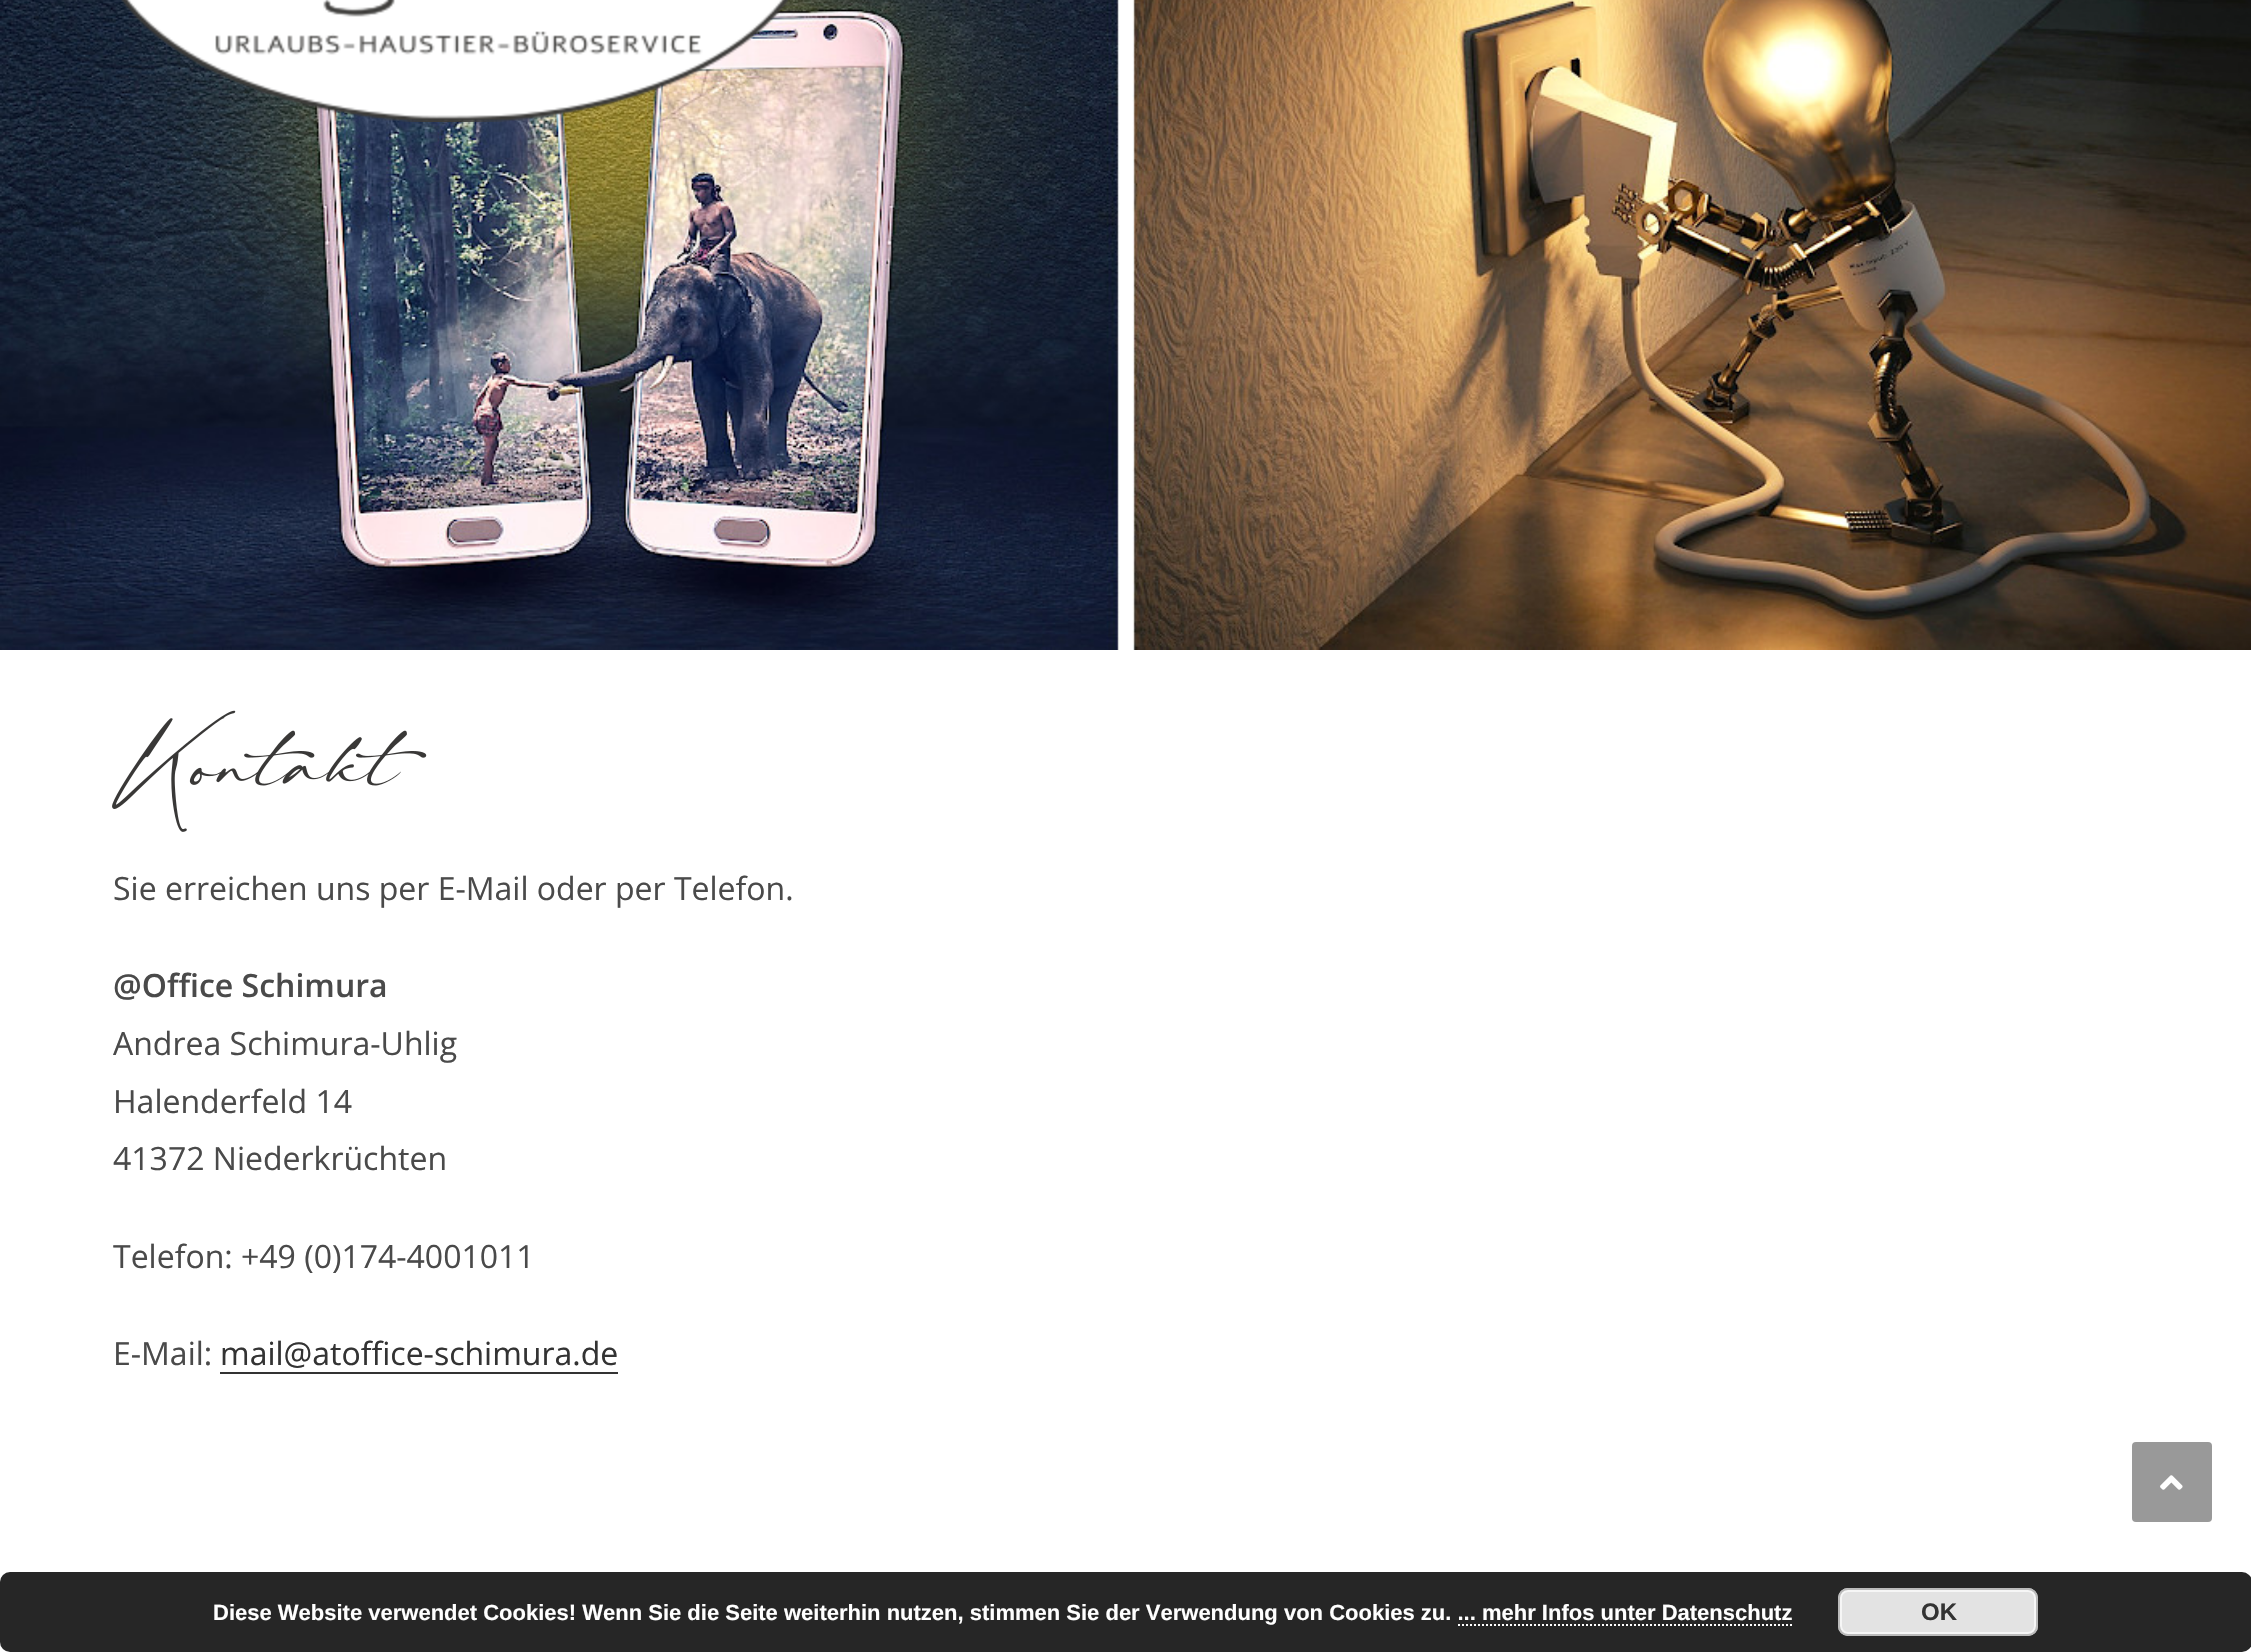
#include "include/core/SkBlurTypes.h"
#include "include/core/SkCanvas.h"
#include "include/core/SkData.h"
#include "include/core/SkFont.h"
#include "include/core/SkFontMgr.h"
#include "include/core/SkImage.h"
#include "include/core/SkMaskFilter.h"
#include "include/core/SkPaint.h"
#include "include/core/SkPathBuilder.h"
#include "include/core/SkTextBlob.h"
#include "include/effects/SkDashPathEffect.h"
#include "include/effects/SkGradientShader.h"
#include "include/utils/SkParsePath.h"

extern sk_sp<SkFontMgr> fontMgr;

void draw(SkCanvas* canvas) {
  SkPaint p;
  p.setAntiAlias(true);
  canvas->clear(SK_ColorWHITE);
  canvas->drawImageRect(SkImages::DeferredFromEncodedData(SkData::MakeFromFileName("images/1.png")), SkRect::MakeLTRB(0, 0, 2251, 650), SkSamplingOptions());
  canvas->drawImageRect(SkImages::DeferredFromEncodedData(SkData::MakeFromFileName("images/2.png")), SkRect::MakeLTRB(121, 0, 788, 122), SkSamplingOptions());
  canvas->drawImageRect(SkImages::DeferredFromEncodedData(SkData::MakeFromFileName("images/3.png")), SkRect::MakeLTRB(112, 710, 427, 832), SkSamplingOptions());
  p.setColor(SkColorSetRGB(51, 51, 51));
  canvas->drawRect(SkRect::MakeLTRB(220, 1372, 618, 1374), p);
  p.setColor(SkColorSetRGB(153, 153, 153));
  canvas->drawRoundRect(SkRect::MakeLTRB(2132, 1442, 2212, 1522), 4, 4, p);
  canvas->drawImageRect(SkImages::DeferredFromEncodedData(SkData::MakeFromFileName("images/4.png")), SkRect::MakeLTRB(2160, 1475, 2183, 1490), SkSamplingOptions());
  p.setColor(SkColorSetRGB(38, 38, 38));
  canvas->drawRoundRect(SkRect::MakeLTRB(0, 1572, 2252, 1652), 10, 10, p);
  p.setColor(SkColorSetRGB(227, 227, 227));
  canvas->drawRoundRect(SkRect::MakeLTRB(1838, 1588, 2038, 1636), 10, 10, p);
  p.setStyle(SkPaint::kStroke_Style);
  p.setStrokeWidth(2);
  p.setColor(SkColorSetRGB(246, 246, 246));
  canvas->drawRoundRect(SkRect::MakeLTRB(1841, 1591, 2035, 1633), 7, 7, p);
  p.setColor(SkColorSetRGB(187, 187, 187));
  canvas->drawRoundRect(SkRect::MakeLTRB(1839, 1589, 2037, 1635), 9, 9, p);
  p.setColor(SK_ColorWHITE);
  p.setPathEffect(SkDashPathEffect::Make({{2, 2}}, 0));
  canvas->drawPath(SkPathBuilder().moveTo(1458, 1625).lineTo(1792, 1625).detach(), p);
  p.setPathEffect(nullptr);
  SkFont font1(fontMgr->matchFamilyStyle("Open Sans", SkFontStyle::Normal()), 32);
  font1.setSubpixel(true);
  p.setStyle(SkPaint::kFill_Style);
  p.setColor(SkColorSetRGB(74, 74, 74));
  canvas->drawString("Sie erreichen uns per E-Mail oder per Telefon.", 113, 900, font1, p);
  SkFont font2(fontMgr->matchFamilyStyle("Open Sans", SkFontStyle(600, SkFontStyle::kNormal_Width, SkFontStyle::kUpright_Slant)), 32);
  font2.setSubpixel(true);
  canvas->drawString("@Office Schimura", 113, 997, font2, p);
  canvas->drawString("Andrea Schimura-Uhlig", 113, 1055, font1, p);
  canvas->drawString("Halenderfeld 14", 113, 1113, font1, p);
  canvas->drawString("41372 Niederkrüchten", 113, 1170, font1, p);
  canvas->drawString("Telefon: +49 (0)174-4001011", 113, 1268, font1, p);
  canvas->drawString("E-Mail:", 113, 1365, font1, p);
  p.setColor(SkColorSetRGB(51, 51, 51));
  canvas->drawString("mail@atoffice-schimura.de", 220, 1365, font1, p);
  SkFont font3(fontMgr->matchFamilyStyle("Liberation Sans", SkFontStyle::Bold()), 22);
  font3.setSubpixel(true);
  p.setColor(SK_ColorWHITE);
  canvas->drawString("Diese Website verwendet Cookies! Wenn Sie die Seite weiterhin nutzen, stimmen Sie der Verwendung von Cookies zu. ... mehr Infos unter Datenschutz", 213, 1620, font3, p);
  SkFont font4(fontMgr->matchFamilyStyle("Liberation Sans", SkFontStyle::Bold()), 24);
  font4.setSubpixel(true);
  p.setColor(SkColorSetRGB(51, 51, 51));
  canvas->drawString("OK", 1921, 1620, font4, p);
}
